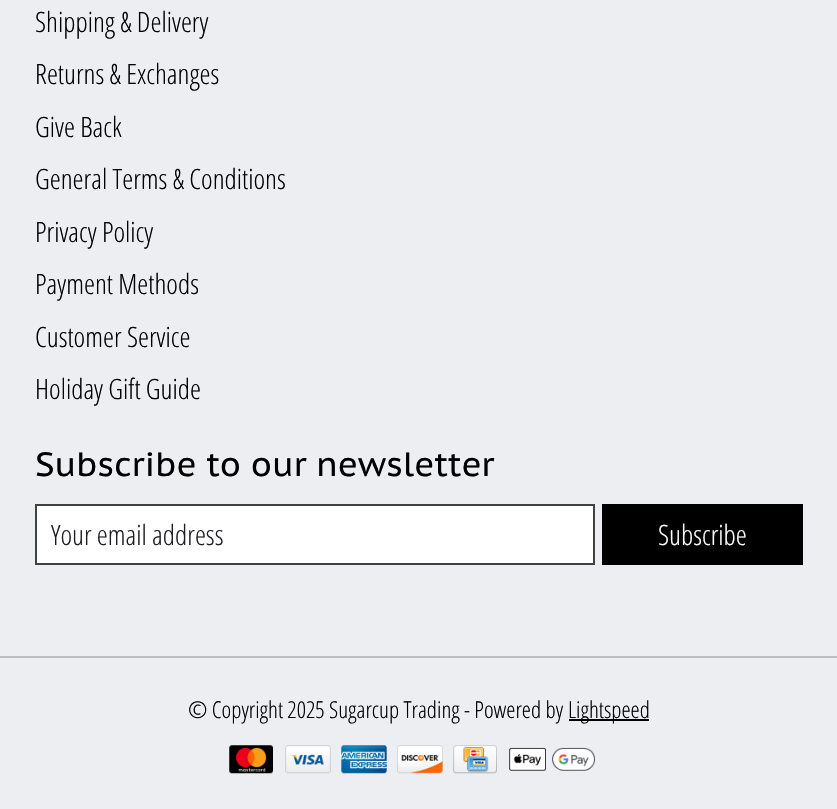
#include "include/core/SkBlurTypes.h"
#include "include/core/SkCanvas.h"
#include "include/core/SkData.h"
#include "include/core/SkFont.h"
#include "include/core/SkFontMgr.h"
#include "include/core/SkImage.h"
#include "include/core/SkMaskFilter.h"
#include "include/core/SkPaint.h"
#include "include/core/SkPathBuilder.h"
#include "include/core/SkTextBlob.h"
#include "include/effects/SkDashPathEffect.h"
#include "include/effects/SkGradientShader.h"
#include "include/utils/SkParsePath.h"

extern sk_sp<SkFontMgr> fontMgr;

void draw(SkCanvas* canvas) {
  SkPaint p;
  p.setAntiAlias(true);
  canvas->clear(SkColorSetRGB(236, 238, 242));
  p.setColor(SK_ColorWHITE);
  canvas->drawRect(SkRect::MakeLTRB(36, 505, 594, 564), p);
  p.setStyle(SkPaint::kStroke_Style);
  p.setStrokeWidth(2);
  p.setColor(SkColorSetRGB(65, 65, 65));
  canvas->drawRect(SkRect::MakeLTRB(36, 505, 594, 564), p);
  p.setStyle(SkPaint::kFill_Style);
  p.setColor(SK_ColorBLACK);
  canvas->drawRect(SkRect::MakeLTRB(602, 504, 803, 565), p);
  p.setColor(SkColorSetRGB(189, 190, 194));
  canvas->drawRect(SkRect::MakeLTRB(0, 656, 837, 658), p);
  p.setColor(SK_ColorBLACK);
  canvas->drawRect(SkRect::MakeLTRB(569, 719, 649, 721), p);
  canvas->drawImageRect(SkImages::DeferredFromEncodedData(SkData::MakeFromFileName("images/1.png")), SkRect::MakeLTRB(229, 745, 273, 774), SkSamplingOptions());
  canvas->drawImageRect(SkImages::DeferredFromEncodedData(SkData::MakeFromFileName("images/2.png")), SkRect::MakeLTRB(285, 745, 331, 774), SkSamplingOptions());
  canvas->drawImageRect(SkImages::DeferredFromEncodedData(SkData::MakeFromFileName("images/3.png")), SkRect::MakeLTRB(341, 745, 387, 774), SkSamplingOptions());
  canvas->drawImageRect(SkImages::DeferredFromEncodedData(SkData::MakeFromFileName("images/4.png")), SkRect::MakeLTRB(397, 745, 443, 774), SkSamplingOptions());
  canvas->drawImageRect(SkImages::DeferredFromEncodedData(SkData::MakeFromFileName("images/5.png")), SkRect::MakeLTRB(453, 745, 497, 774), SkSamplingOptions());
  canvas->drawImageRect(SkImages::DeferredFromEncodedData(SkData::MakeFromFileName("images/6.png")), SkRect::MakeLTRB(509, 747, 595, 771), SkSamplingOptions());
  SkFont font1(fontMgr->matchFamilyStyle("Open Sans Condensed", SkFontStyle(300, SkFontStyle::kNormal_Width, SkFontStyle::kUpright_Slant)), 28);
  font1.setSubpixel(true);
  canvas->drawString("Shipping & Delivery", 35, 32, font1, p);
  canvas->drawString("Returns & Exchanges", 35, 84, font1, p);
  canvas->drawString("Give Back", 35, 137, font1, p);
  canvas->drawString("General Terms & Conditions", 35, 189, font1, p);
  canvas->drawString("Privacy Policy", 35, 242, font1, p);
  canvas->drawString("Payment Methods", 35, 294, font1, p);
  canvas->drawString("Customer Service", 35, 347, font1, p);
  canvas->drawString("Holiday Gift Guide", 35, 399, font1, p);
  SkFont font2(fontMgr->matchFamilyStyle("PT Sans Caption", SkFontStyle::Normal()), 33.6f);
  font2.setSubpixel(true);
  canvas->drawString("Subscribe to our newsletter", 35, 476, font2, p);
  p.setColor(SkColorSetRGB(28, 28, 33));
  canvas->drawString("Your email address", 51, 545, font1, p);
  p.setColor(SK_ColorWHITE);
  canvas->drawString("Subscribe", 658, 545, font1, p);
  SkFont font3(fontMgr->matchFamilyStyle("Open Sans Condensed", SkFontStyle(300, SkFontStyle::kNormal_Width, SkFontStyle::kUpright_Slant)), 23.3f);
  font3.setSubpixel(true);
  p.setColor(SK_ColorBLACK);
  canvas->drawString("© Copyright 2025 Sugarcup Trading - Powered by", 188, 718, font3, p);
  canvas->drawString("Lightspeed", 568, 718, font3, p);
}
